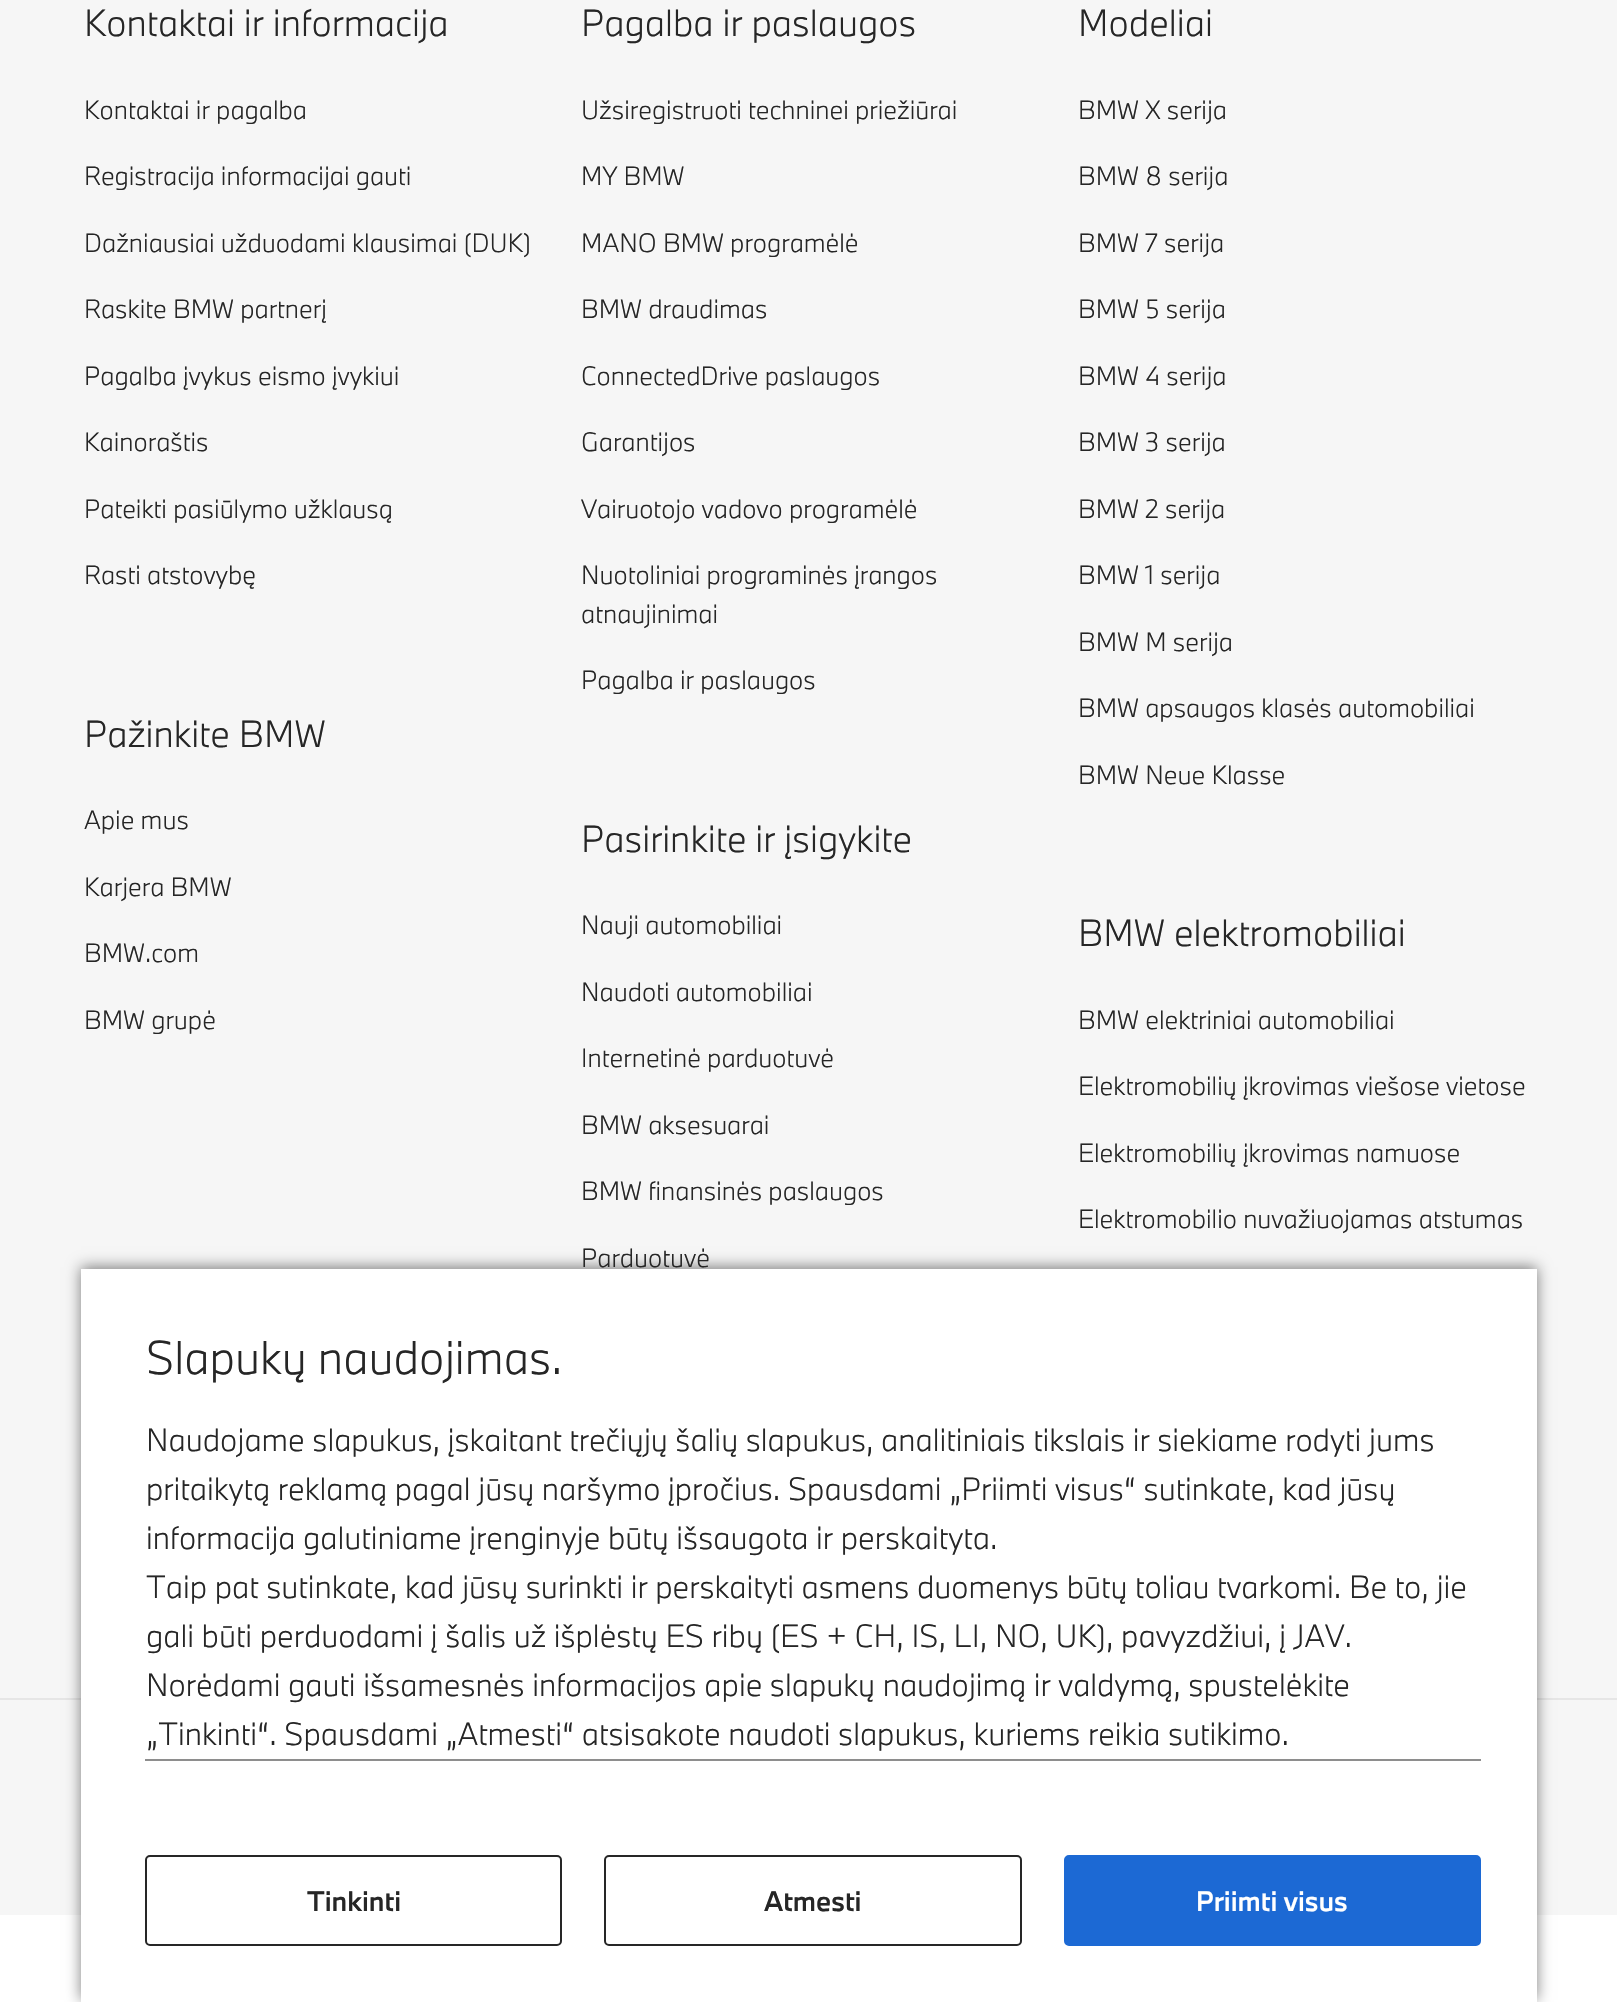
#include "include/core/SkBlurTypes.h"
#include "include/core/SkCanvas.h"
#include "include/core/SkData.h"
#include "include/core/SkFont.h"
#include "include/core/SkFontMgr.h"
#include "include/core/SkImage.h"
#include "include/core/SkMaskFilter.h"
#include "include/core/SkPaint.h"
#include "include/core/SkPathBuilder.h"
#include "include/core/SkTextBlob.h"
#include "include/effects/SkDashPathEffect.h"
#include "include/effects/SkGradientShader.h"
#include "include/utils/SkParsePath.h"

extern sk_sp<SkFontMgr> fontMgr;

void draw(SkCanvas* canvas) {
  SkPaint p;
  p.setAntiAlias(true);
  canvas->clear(SK_ColorWHITE);
  p.setColor(SkColorSetRGB(246, 246, 246));
  canvas->drawRect(SkRect::MakeLTRB(0, 0, 1617, 1698), p);
  p.setColor(SkColorSetRGB(230, 230, 230));
  canvas->drawRect(SkRect::MakeLTRB(0, 1698, 1617, 1700), p);
  p.setColor(SkColorSetRGB(246, 246, 246));
  canvas->drawRect(SkRect::MakeLTRB(0, 1700, 1617, 1915), p);
  p.setColor(SkColorSetARGB(128, 0, 0, 0));
  p.setMaskFilter(SkMaskFilter::MakeBlur(kNormal_SkBlurStyle, 7));
  canvas->drawRect(SkRect::MakeLTRB(81, 1267, 1537, 2000), p);
  p.setMaskFilter(nullptr);
  p.setColor(SK_ColorWHITE);
  canvas->drawRect(SkRect::MakeLTRB(81, 1269, 1537, 2002), p);
  p.setColor(SkColorSetRGB(142, 142, 142));
  canvas->drawRect(SkRect::MakeLTRB(145, 1759, 1481, 1761), p);
  p.setStyle(SkPaint::kStroke_Style);
  p.setStrokeWidth(2);
  p.setColor(SkColorSetRGB(38, 38, 38));
  canvas->drawRoundRect(SkRect::MakeLTRB(146, 1856, 561, 1945), 4, 4, p);
  canvas->drawRoundRect(SkRect::MakeLTRB(605, 1856, 1021, 1945), 4, 4, p);
  p.setStyle(SkPaint::kFill_Style);
  p.setColor(SkColorSetRGB(28, 105, 212));
  canvas->drawRoundRect(SkRect::MakeLTRB(1065, 1856, 1480, 1945), 4, 4, p);
  p.setStyle(SkPaint::kStroke_Style);
  canvas->drawRoundRect(SkRect::MakeLTRB(1065, 1856, 1480, 1945), 4, 4, p);
  SkFont font1(fontMgr->matchFamilyStyle("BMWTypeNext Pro", SkFontStyle(300, SkFontStyle::kNormal_Width, SkFontStyle::kUpright_Slant)), 35);
  font1.setSubpixel(true);
  p.setStyle(SkPaint::kFill_Style);
  p.setColor(SkColorSetRGB(38, 38, 38));
  canvas->drawString("Kontaktai ir informacija", 84, 36, font1, p);
  SkFont font2(fontMgr->matchFamilyStyle("BMWTypeNext Pro", SkFontStyle(300, SkFontStyle::kNormal_Width, SkFontStyle::kUpright_Slant)), 24.5f);
  font2.setSubpixel(true);
  canvas->drawString("Kontaktai ir pagalba", 84, 119, font2, p);
  canvas->drawString("Registracija informacijai gauti", 84, 185, font2, p);
  canvas->drawString("Dažniausiai užduodami klausimai (DUK)", 84, 252, font2, p);
  canvas->drawString("Raskite BMW partnerį", 84, 318, font2, p);
  canvas->drawString("Pagalba įvykus eismo įvykiui", 84, 385, font2, p);
  canvas->drawString("Kainoraštis", 84, 451, font2, p);
  canvas->drawString("Pateikti pasiūlymo užklausą", 84, 518, font2, p);
  canvas->drawString("Rasti atstovybę", 84, 584, font2, p);
  canvas->drawString("Pažinkite BMW", 84, 747, font1, p);
  canvas->drawString("Apie mus", 84, 829, font2, p);
  canvas->drawString("Karjera BMW", 84, 896, font2, p);
  canvas->drawString("BMW.com", 84, 962, font2, p);
  canvas->drawString("BMW grupė", 84, 1029, font2, p);
  canvas->drawString("Pagalba ir paslaugos", 581, 36, font1, p);
  canvas->drawString("Užsiregistruoti techninei priežiūrai", 581, 119, font2, p);
  canvas->drawString("MY BMW", 581, 185, font2, p);
  canvas->drawString("MANO BMW programėlė", 581, 252, font2, p);
  canvas->drawString("BMW draudimas", 581, 318, font2, p);
  canvas->drawString("ConnectedDrive paslaugos", 581, 385, font2, p);
  canvas->drawString("Garantijos", 581, 451, font2, p);
  canvas->drawString("Vairuotojo vadovo programėlė", 581, 518, font2, p);
  canvas->drawString("Nuotoliniai programinės įrangos", 581, 584, font2, p);
  canvas->drawString("atnaujinimai", 581, 623, font2, p);
  canvas->drawString("Pagalba ir paslaugos", 581, 689, font2, p);
  canvas->drawString("Pasirinkite ir įsigykite", 581, 852, font1, p);
  canvas->drawString("Nauji automobiliai", 581, 934, font2, p);
  canvas->drawString("Naudoti automobiliai", 581, 1001, font2, p);
  canvas->drawString("Internetinė parduotuvė", 581, 1067, font2, p);
  canvas->drawString("BMW aksesuarai", 581, 1134, font2, p);
  canvas->drawString("BMW finansinės paslaugos", 581, 1200, font2, p);
  canvas->drawString("Parduotuvė", 581, 1267, font2, p);
  canvas->drawString("Modeliai", 1078, 36, font1, p);
  canvas->drawString("BMW X serija", 1078, 119, font2, p);
  canvas->drawString("BMW 8 serija", 1078, 185, font2, p);
  canvas->drawString("BMW 7 serija", 1078, 252, font2, p);
  canvas->drawString("BMW 5 serija", 1078, 318, font2, p);
  canvas->drawString("BMW 4 serija", 1078, 385, font2, p);
  canvas->drawString("BMW 3 serija", 1078, 451, font2, p);
  canvas->drawString("BMW 2 serija", 1078, 518, font2, p);
  canvas->drawString("BMW 1 serija", 1078, 584, font2, p);
  canvas->drawString("BMW M serija", 1078, 651, font2, p);
  canvas->drawString("BMW apsaugos klasės automobiliai", 1078, 717, font2, p);
  canvas->drawString("BMW Neue Klasse", 1078, 784, font2, p);
  canvas->drawString("BMW elektromobiliai", 1078, 946, font1, p);
  canvas->drawString("BMW elektriniai automobiliai", 1078, 1029, font2, p);
  canvas->drawString("Elektromobilių įkrovimas viešose vietose", 1078, 1095, font2, p);
  canvas->drawString("Elektromobilių įkrovimas namuose", 1078, 1162, font2, p);
  canvas->drawString("Elektromobilio nuvažiuojamas atstumas", 1078, 1228, font2, p);
  SkFont font3(fontMgr->matchFamilyStyle("BMWTypeNext Pro", SkFontStyle(300, SkFontStyle::kNormal_Width, SkFontStyle::kUpright_Slant)), 43.75f);
  font3.setSubpixel(true);
  canvas->drawString("Slapukų naudojimas.", 146, 1374, font3, p);
  SkFont font4(fontMgr->matchFamilyStyle("BMWTypeNext Pro", SkFontStyle(300, SkFontStyle::kNormal_Width, SkFontStyle::kUpright_Slant)), 29.75f);
  font4.setSubpixel(true);
  canvas->drawString("Naudojame slapukus, įskaitant trečiųjų šalių slapukus, analitiniais tikslais ir siekiame rodyti jums", 146, 1451, font4, p);
  canvas->drawString("pritaikytą reklamą pagal jūsų naršymo įpročius. Spausdami „Priimti visus“ sutinkate, kad jūsų", 146, 1500, font4, p);
  canvas->drawString("informacija galutiniame įrenginyje būtų išsaugota ir perskaityta.", 146, 1549, font4, p);
  canvas->drawString("Taip pat sutinkate, kad jūsų surinkti ir perskaityti asmens duomenys būtų toliau tvarkomi. Be to, jie", 146, 1598, font4, p);
  canvas->drawString("gali būti perduodami į šalis už išplėstų ES ribų (ES + CH, IS, LI, NO, UK), pavyzdžiui, į JAV.", 146, 1647, font4, p);
  canvas->drawString("Norėdami gauti išsamesnės informacijos apie slapukų naudojimą ir valdymą, spustelėkite", 146, 1696, font4, p);
  canvas->drawString("„Tinkinti“. Spausdami „Atmesti“ atsisakote naudoti slapukus, kuriems reikia sutikimo.", 146, 1745, font4, p);
  SkFont font5(fontMgr->matchFamilyStyle("BMWTypeNext Pro", SkFontStyle(500, SkFontStyle::kNormal_Width, SkFontStyle::kUpright_Slant)), 26.25f);
  font5.setSubpixel(true);
  canvas->drawString("Tinkinti", 307, 1911, font5, p);
  canvas->drawString("Atmesti", 764, 1911, font5, p);
  p.setColor(SK_ColorWHITE);
  canvas->drawString("Priimti visus", 1196, 1911, font5, p);
}
